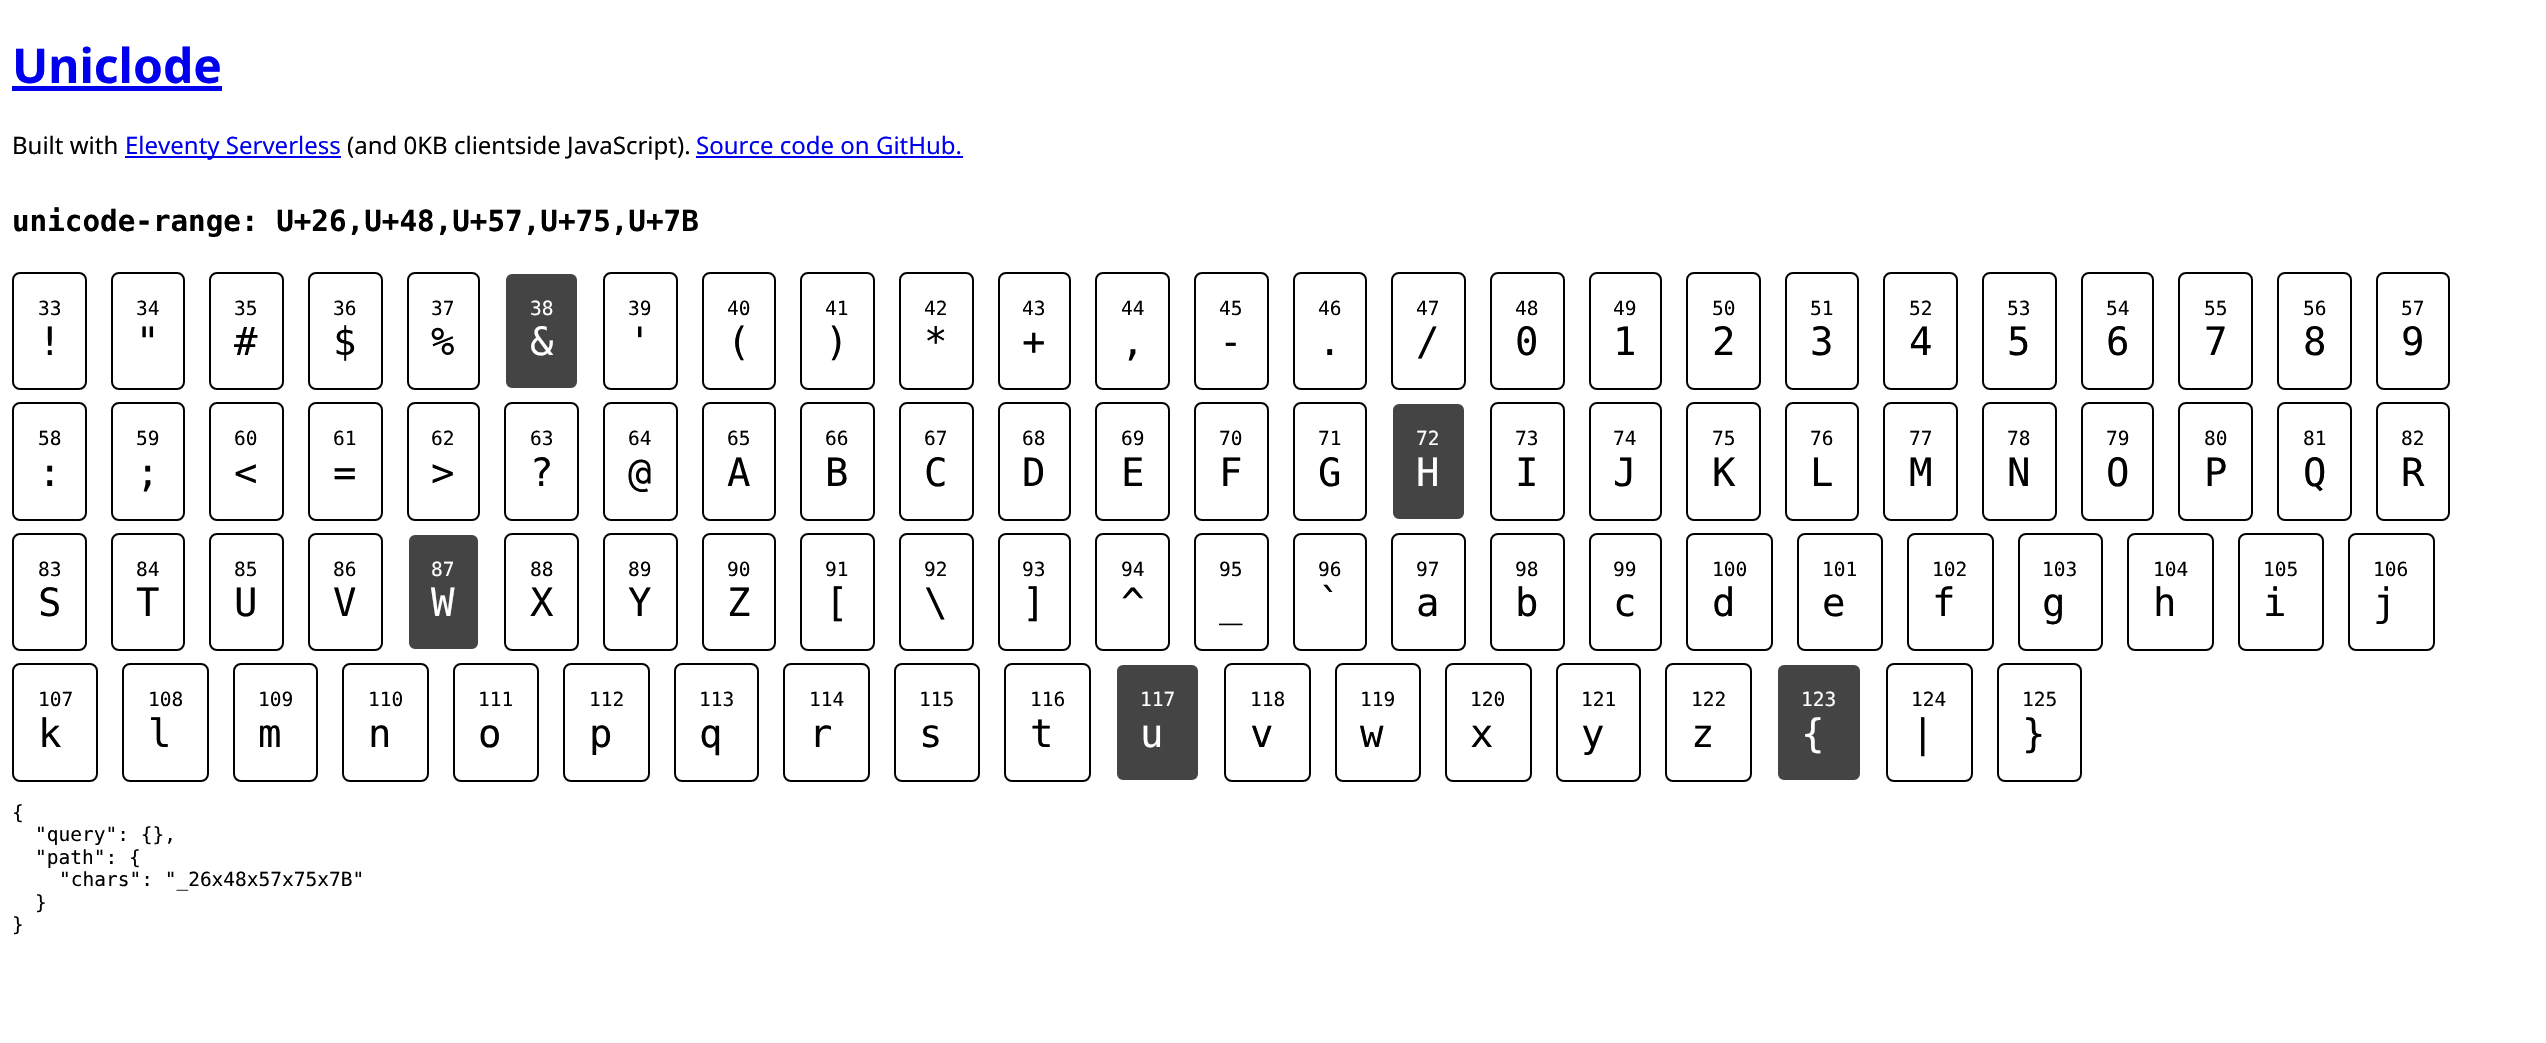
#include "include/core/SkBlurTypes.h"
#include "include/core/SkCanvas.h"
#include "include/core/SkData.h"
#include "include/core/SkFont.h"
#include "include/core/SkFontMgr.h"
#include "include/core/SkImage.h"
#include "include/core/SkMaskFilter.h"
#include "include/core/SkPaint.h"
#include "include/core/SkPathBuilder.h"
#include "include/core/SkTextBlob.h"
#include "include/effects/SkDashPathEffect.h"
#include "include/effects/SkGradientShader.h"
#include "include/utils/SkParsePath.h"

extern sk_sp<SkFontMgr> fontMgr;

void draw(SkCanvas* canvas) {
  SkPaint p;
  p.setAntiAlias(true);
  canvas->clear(SK_ColorWHITE);
  p.setColor(SkColorSetRGB(0, 0, 238));
  canvas->drawRect(SkRect::MakeLTRB(12, 86, 222, 91), p);
  canvas->drawRect(SkRect::MakeLTRB(125, 156, 341, 158), p);
  canvas->drawRect(SkRect::MakeLTRB(696, 156, 963, 158), p);
  p.setStyle(SkPaint::kStroke_Style);
  p.setStrokeWidth(2);
  p.setColor(SK_ColorBLACK);
  canvas->drawRoundRect(SkRect::MakeLTRB(13, 273, 86, 389), 7, 7, p);
  canvas->drawRoundRect(SkRect::MakeLTRB(112, 273, 184, 389), 7, 7, p);
  canvas->drawRoundRect(SkRect::MakeLTRB(210, 273, 283, 389), 7, 7, p);
  canvas->drawRoundRect(SkRect::MakeLTRB(309, 273, 382, 389), 7, 7, p);
  canvas->drawRoundRect(SkRect::MakeLTRB(408, 273, 479, 389), 7, 7, p);
  p.setStyle(SkPaint::kFill_Style);
  p.setColor(SkColorSetRGB(68, 68, 68));
  canvas->drawRoundRect(SkRect::MakeLTRB(505, 273, 578, 389), 7, 7, p);
  p.setStyle(SkPaint::kStroke_Style);
  p.setColor(SK_ColorWHITE);
  canvas->drawRoundRect(SkRect::MakeLTRB(505, 273, 578, 389), 7, 7, p);
  p.setColor(SK_ColorBLACK);
  canvas->drawRoundRect(SkRect::MakeLTRB(604, 273, 677, 389), 7, 7, p);
  canvas->drawRoundRect(SkRect::MakeLTRB(703, 273, 775, 389), 7, 7, p);
  canvas->drawRoundRect(SkRect::MakeLTRB(801, 273, 874, 389), 7, 7, p);
  canvas->drawRoundRect(SkRect::MakeLTRB(900, 273, 973, 389), 7, 7, p);
  canvas->drawRoundRect(SkRect::MakeLTRB(999, 273, 1070, 389), 7, 7, p);
  canvas->drawRoundRect(SkRect::MakeLTRB(1096, 273, 1169, 389), 7, 7, p);
  canvas->drawRoundRect(SkRect::MakeLTRB(1195, 273, 1268, 389), 7, 7, p);
  canvas->drawRoundRect(SkRect::MakeLTRB(1294, 273, 1366, 389), 7, 7, p);
  canvas->drawRoundRect(SkRect::MakeLTRB(1392, 273, 1465, 389), 7, 7, p);
  canvas->drawRoundRect(SkRect::MakeLTRB(1491, 273, 1564, 389), 7, 7, p);
  canvas->drawRoundRect(SkRect::MakeLTRB(1590, 273, 1661, 389), 7, 7, p);
  canvas->drawRoundRect(SkRect::MakeLTRB(1687, 273, 1760, 389), 7, 7, p);
  canvas->drawRoundRect(SkRect::MakeLTRB(1786, 273, 1858, 389), 7, 7, p);
  canvas->drawRoundRect(SkRect::MakeLTRB(1884, 273, 1957, 389), 7, 7, p);
  canvas->drawRoundRect(SkRect::MakeLTRB(1983, 273, 2056, 389), 7, 7, p);
  canvas->drawRoundRect(SkRect::MakeLTRB(2082, 273, 2153, 389), 7, 7, p);
  canvas->drawRoundRect(SkRect::MakeLTRB(2179, 273, 2252, 389), 7, 7, p);
  canvas->drawRoundRect(SkRect::MakeLTRB(2278, 273, 2351, 389), 7, 7, p);
  canvas->drawRoundRect(SkRect::MakeLTRB(2377, 273, 2449, 389), 7, 7, p);
  canvas->drawRoundRect(SkRect::MakeLTRB(13, 403, 86, 520), 7, 7, p);
  canvas->drawRoundRect(SkRect::MakeLTRB(112, 403, 184, 520), 7, 7, p);
  canvas->drawRoundRect(SkRect::MakeLTRB(210, 403, 283, 520), 7, 7, p);
  canvas->drawRoundRect(SkRect::MakeLTRB(309, 403, 382, 520), 7, 7, p);
  canvas->drawRoundRect(SkRect::MakeLTRB(408, 403, 479, 520), 7, 7, p);
  canvas->drawRoundRect(SkRect::MakeLTRB(505, 403, 578, 520), 7, 7, p);
  canvas->drawRoundRect(SkRect::MakeLTRB(604, 403, 677, 520), 7, 7, p);
  canvas->drawRoundRect(SkRect::MakeLTRB(703, 403, 775, 520), 7, 7, p);
  canvas->drawRoundRect(SkRect::MakeLTRB(801, 403, 874, 520), 7, 7, p);
  canvas->drawRoundRect(SkRect::MakeLTRB(900, 403, 973, 520), 7, 7, p);
  canvas->drawRoundRect(SkRect::MakeLTRB(999, 403, 1070, 520), 7, 7, p);
  canvas->drawRoundRect(SkRect::MakeLTRB(1096, 403, 1169, 520), 7, 7, p);
  canvas->drawRoundRect(SkRect::MakeLTRB(1195, 403, 1268, 520), 7, 7, p);
  canvas->drawRoundRect(SkRect::MakeLTRB(1294, 403, 1366, 520), 7, 7, p);
  p.setStyle(SkPaint::kFill_Style);
  p.setColor(SkColorSetRGB(68, 68, 68));
  canvas->drawRoundRect(SkRect::MakeLTRB(1392, 403, 1465, 520), 7, 7, p);
  p.setStyle(SkPaint::kStroke_Style);
  p.setColor(SK_ColorWHITE);
  canvas->drawRoundRect(SkRect::MakeLTRB(1392, 403, 1465, 520), 7, 7, p);
  p.setColor(SK_ColorBLACK);
  canvas->drawRoundRect(SkRect::MakeLTRB(1491, 403, 1564, 520), 7, 7, p);
  canvas->drawRoundRect(SkRect::MakeLTRB(1590, 403, 1661, 520), 7, 7, p);
  canvas->drawRoundRect(SkRect::MakeLTRB(1687, 403, 1760, 520), 7, 7, p);
  canvas->drawRoundRect(SkRect::MakeLTRB(1786, 403, 1858, 520), 7, 7, p);
  canvas->drawRoundRect(SkRect::MakeLTRB(1884, 403, 1957, 520), 7, 7, p);
  canvas->drawRoundRect(SkRect::MakeLTRB(1983, 403, 2056, 520), 7, 7, p);
  canvas->drawRoundRect(SkRect::MakeLTRB(2082, 403, 2153, 520), 7, 7, p);
  canvas->drawRoundRect(SkRect::MakeLTRB(2179, 403, 2252, 520), 7, 7, p);
  canvas->drawRoundRect(SkRect::MakeLTRB(2278, 403, 2351, 520), 7, 7, p);
  canvas->drawRoundRect(SkRect::MakeLTRB(2377, 403, 2449, 520), 7, 7, p);
  canvas->drawRoundRect(SkRect::MakeLTRB(13, 534, 86, 650), 7, 7, p);
  canvas->drawRoundRect(SkRect::MakeLTRB(112, 534, 184, 650), 7, 7, p);
  canvas->drawRoundRect(SkRect::MakeLTRB(210, 534, 283, 650), 7, 7, p);
  canvas->drawRoundRect(SkRect::MakeLTRB(309, 534, 382, 650), 7, 7, p);
  p.setStyle(SkPaint::kFill_Style);
  p.setColor(SkColorSetRGB(68, 68, 68));
  canvas->drawRoundRect(SkRect::MakeLTRB(408, 534, 479, 650), 7, 7, p);
  p.setStyle(SkPaint::kStroke_Style);
  p.setColor(SK_ColorWHITE);
  canvas->drawRoundRect(SkRect::MakeLTRB(408, 534, 479, 650), 7, 7, p);
  p.setColor(SK_ColorBLACK);
  canvas->drawRoundRect(SkRect::MakeLTRB(505, 534, 578, 650), 7, 7, p);
  canvas->drawRoundRect(SkRect::MakeLTRB(604, 534, 677, 650), 7, 7, p);
  canvas->drawRoundRect(SkRect::MakeLTRB(703, 534, 775, 650), 7, 7, p);
  canvas->drawRoundRect(SkRect::MakeLTRB(801, 534, 874, 650), 7, 7, p);
  canvas->drawRoundRect(SkRect::MakeLTRB(900, 534, 973, 650), 7, 7, p);
  canvas->drawRoundRect(SkRect::MakeLTRB(999, 534, 1070, 650), 7, 7, p);
  canvas->drawRoundRect(SkRect::MakeLTRB(1096, 534, 1169, 650), 7, 7, p);
  canvas->drawRoundRect(SkRect::MakeLTRB(1195, 534, 1268, 650), 7, 7, p);
  canvas->drawRoundRect(SkRect::MakeLTRB(1294, 534, 1366, 650), 7, 7, p);
  canvas->drawRoundRect(SkRect::MakeLTRB(1392, 534, 1465, 650), 7, 7, p);
  canvas->drawRoundRect(SkRect::MakeLTRB(1491, 534, 1564, 650), 7, 7, p);
  canvas->drawRoundRect(SkRect::MakeLTRB(1590, 534, 1661, 650), 7, 7, p);
  canvas->drawRoundRect(SkRect::MakeLTRB(1687, 534, 1772, 650), 7, 7, p);
  canvas->drawRoundRect(SkRect::MakeLTRB(1798, 534, 1882, 650), 7, 7, p);
  canvas->drawRoundRect(SkRect::MakeLTRB(1908, 534, 1993, 650), 7, 7, p);
  canvas->drawRoundRect(SkRect::MakeLTRB(2019, 534, 2102, 650), 7, 7, p);
  canvas->drawRoundRect(SkRect::MakeLTRB(2128, 534, 2213, 650), 7, 7, p);
  canvas->drawRoundRect(SkRect::MakeLTRB(2239, 534, 2323, 650), 7, 7, p);
  canvas->drawRoundRect(SkRect::MakeLTRB(2349, 534, 2434, 650), 7, 7, p);
  canvas->drawRoundRect(SkRect::MakeLTRB(13, 664, 97, 781), 7, 7, p);
  canvas->drawRoundRect(SkRect::MakeLTRB(123, 664, 208, 781), 7, 7, p);
  canvas->drawRoundRect(SkRect::MakeLTRB(234, 664, 317, 781), 7, 7, p);
  canvas->drawRoundRect(SkRect::MakeLTRB(343, 664, 428, 781), 7, 7, p);
  canvas->drawRoundRect(SkRect::MakeLTRB(454, 664, 538, 781), 7, 7, p);
  canvas->drawRoundRect(SkRect::MakeLTRB(564, 664, 649, 781), 7, 7, p);
  canvas->drawRoundRect(SkRect::MakeLTRB(675, 664, 758, 781), 7, 7, p);
  canvas->drawRoundRect(SkRect::MakeLTRB(784, 664, 869, 781), 7, 7, p);
  canvas->drawRoundRect(SkRect::MakeLTRB(895, 664, 979, 781), 7, 7, p);
  canvas->drawRoundRect(SkRect::MakeLTRB(1005, 664, 1090, 781), 7, 7, p);
  p.setStyle(SkPaint::kFill_Style);
  p.setColor(SkColorSetRGB(68, 68, 68));
  canvas->drawRoundRect(SkRect::MakeLTRB(1116, 664, 1199, 781), 7, 7, p);
  p.setStyle(SkPaint::kStroke_Style);
  p.setColor(SK_ColorWHITE);
  canvas->drawRoundRect(SkRect::MakeLTRB(1116, 664, 1199, 781), 7, 7, p);
  p.setColor(SK_ColorBLACK);
  canvas->drawRoundRect(SkRect::MakeLTRB(1225, 664, 1310, 781), 7, 7, p);
  canvas->drawRoundRect(SkRect::MakeLTRB(1336, 664, 1420, 781), 7, 7, p);
  canvas->drawRoundRect(SkRect::MakeLTRB(1446, 664, 1531, 781), 7, 7, p);
  canvas->drawRoundRect(SkRect::MakeLTRB(1557, 664, 1640, 781), 7, 7, p);
  canvas->drawRoundRect(SkRect::MakeLTRB(1666, 664, 1751, 781), 7, 7, p);
  p.setStyle(SkPaint::kFill_Style);
  p.setColor(SkColorSetRGB(68, 68, 68));
  canvas->drawRoundRect(SkRect::MakeLTRB(1777, 664, 1861, 781), 7, 7, p);
  p.setStyle(SkPaint::kStroke_Style);
  p.setColor(SK_ColorWHITE);
  canvas->drawRoundRect(SkRect::MakeLTRB(1777, 664, 1861, 781), 7, 7, p);
  p.setColor(SK_ColorBLACK);
  canvas->drawRoundRect(SkRect::MakeLTRB(1887, 664, 1972, 781), 7, 7, p);
  canvas->drawRoundRect(SkRect::MakeLTRB(1998, 664, 2081, 781), 7, 7, p);
  SkFont font1(fontMgr->matchFamilyStyle("Noto Sans", SkFontStyle::Bold()), 48);
  font1.setSubpixel(true);
  p.setStyle(SkPaint::kFill_Style);
  p.setColor(SkColorSetRGB(0, 0, 238));
  canvas->drawString("Uniclode", 12, 83, font1, p);
  SkFont font2(fontMgr->matchFamilyStyle("Noto Sans", SkFontStyle::Normal()), 24);
  font2.setSubpixel(true);
  p.setColor(SK_ColorBLACK);
  canvas->drawString("Built with", 12, 154, font2, p);
  p.setColor(SkColorSetRGB(0, 0, 238));
  canvas->drawString("Eleventy Serverless", 125, 154, font2, p);
  p.setColor(SK_ColorBLACK);
  canvas->drawString("(and 0KB clientside JavaScript).", 347, 154, font2, p);
  p.setColor(SkColorSetRGB(0, 0, 238));
  canvas->drawString("Source code on GitHub.", 696, 154, font2, p);
  SkFont font3(fontMgr->matchFamilyStyle("DejaVu Sans Mono", SkFontStyle::Bold()), 29.25f);
  font3.setSubpixel(true);
  p.setColor(SK_ColorBLACK);
  canvas->drawString("unicode-range: U+26,U+48,U+57,U+75,U+7B", 12, 231, font3, p);
  SkFont font4(fontMgr->matchFamilyStyle("DejaVu Sans Mono", SkFontStyle::Normal()), 19.5f);
  font4.setSubpixel(true);
  canvas->drawString("33", 38, 315, font4, p);
  SkFont font5(fontMgr->matchFamilyStyle("DejaVu Sans Mono", SkFontStyle::Normal()), 39);
  font5.setSubpixel(true);
  canvas->drawString("!", 38, 355, font5, p);
  canvas->drawString("34", 136, 315, font4, p);
  canvas->drawString("\"", 136, 355, font5, p);
  canvas->drawString("35", 234, 315, font4, p);
  canvas->drawString("#", 234, 355, font5, p);
  canvas->drawString("36", 333, 315, font4, p);
  canvas->drawString("$", 333, 355, font5, p);
  canvas->drawString("37", 431, 315, font4, p);
  canvas->drawString("%", 431, 355, font5, p);
  p.setColor(SK_ColorWHITE);
  canvas->drawString("38", 530, 315, font4, p);
  canvas->drawString("&", 530, 355, font5, p);
  p.setColor(SK_ColorBLACK);
  canvas->drawString("39", 628, 315, font4, p);
  canvas->drawString("'", 628, 355, font5, p);
  canvas->drawString("40", 727, 315, font4, p);
  canvas->drawString("(", 727, 355, font5, p);
  canvas->drawString("41", 825, 315, font4, p);
  canvas->drawString(")", 825, 355, font5, p);
  canvas->drawString("42", 924, 315, font4, p);
  canvas->drawString("*", 924, 355, font5, p);
  canvas->drawString("43", 1022, 315, font4, p);
  canvas->drawString("+", 1022, 355, font5, p);
  canvas->drawString("44", 1121, 315, font4, p);
  canvas->drawString(",", 1121, 355, font5, p);
  canvas->drawString("45", 1219, 315, font4, p);
  canvas->drawString("-", 1219, 355, font5, p);
  canvas->drawString("46", 1318, 315, font4, p);
  canvas->drawString(".", 1318, 355, font5, p);
  canvas->drawString("47", 1416, 315, font4, p);
  canvas->drawString("/", 1416, 355, font5, p);
  canvas->drawString("48", 1515, 315, font4, p);
  canvas->drawString("0", 1515, 355, font5, p);
  canvas->drawString("49", 1613, 315, font4, p);
  canvas->drawString("1", 1613, 355, font5, p);
  canvas->drawString("50", 1712, 315, font4, p);
  canvas->drawString("2", 1712, 355, font5, p);
  canvas->drawString("51", 1810, 315, font4, p);
  canvas->drawString("3", 1810, 355, font5, p);
  canvas->drawString("52", 1909, 315, font4, p);
  canvas->drawString("4", 1909, 355, font5, p);
  canvas->drawString("53", 2007, 315, font4, p);
  canvas->drawString("5", 2007, 355, font5, p);
  canvas->drawString("54", 2106, 315, font4, p);
  canvas->drawString("6", 2106, 355, font5, p);
  canvas->drawString("55", 2204, 315, font4, p);
  canvas->drawString("7", 2204, 355, font5, p);
  canvas->drawString("56", 2303, 315, font4, p);
  canvas->drawString("8", 2303, 355, font5, p);
  canvas->drawString("57", 2401, 315, font4, p);
  canvas->drawString("9", 2401, 355, font5, p);
  canvas->drawString("58", 38, 445, font4, p);
  canvas->drawString(":", 38, 486, font5, p);
  canvas->drawString("59", 136, 445, font4, p);
  canvas->drawString(";", 136, 486, font5, p);
  canvas->drawString("60", 234, 445, font4, p);
  canvas->drawString("<", 234, 486, font5, p);
  canvas->drawString("61", 333, 445, font4, p);
  canvas->drawString("=", 333, 486, font5, p);
  canvas->drawString("62", 431, 445, font4, p);
  canvas->drawString(">", 431, 486, font5, p);
  canvas->drawString("63", 530, 445, font4, p);
  canvas->drawString("?", 530, 486, font5, p);
  canvas->drawString("64", 628, 445, font4, p);
  canvas->drawString("@", 628, 486, font5, p);
  canvas->drawString("65", 727, 445, font4, p);
  canvas->drawString("A", 727, 486, font5, p);
  canvas->drawString("66", 825, 445, font4, p);
  canvas->drawString("B", 825, 486, font5, p);
  canvas->drawString("67", 924, 445, font4, p);
  canvas->drawString("C", 924, 486, font5, p);
  canvas->drawString("68", 1022, 445, font4, p);
  canvas->drawString("D", 1022, 486, font5, p);
  canvas->drawString("69", 1121, 445, font4, p);
  canvas->drawString("E", 1121, 486, font5, p);
  canvas->drawString("70", 1219, 445, font4, p);
  canvas->drawString("F", 1219, 486, font5, p);
  canvas->drawString("71", 1318, 445, font4, p);
  canvas->drawString("G", 1318, 486, font5, p);
  p.setColor(SK_ColorWHITE);
  canvas->drawString("72", 1416, 445, font4, p);
  canvas->drawString("H", 1416, 486, font5, p);
  p.setColor(SK_ColorBLACK);
  canvas->drawString("73", 1515, 445, font4, p);
  canvas->drawString("I", 1515, 486, font5, p);
  canvas->drawString("74", 1613, 445, font4, p);
  canvas->drawString("J", 1613, 486, font5, p);
  canvas->drawString("75", 1712, 445, font4, p);
  canvas->drawString("K", 1712, 486, font5, p);
  canvas->drawString("76", 1810, 445, font4, p);
  canvas->drawString("L", 1810, 486, font5, p);
  canvas->drawString("77", 1909, 445, font4, p);
  canvas->drawString("M", 1909, 486, font5, p);
  canvas->drawString("78", 2007, 445, font4, p);
  canvas->drawString("N", 2007, 486, font5, p);
  canvas->drawString("79", 2106, 445, font4, p);
  canvas->drawString("O", 2106, 486, font5, p);
  canvas->drawString("80", 2204, 445, font4, p);
  canvas->drawString("P", 2204, 486, font5, p);
  canvas->drawString("81", 2303, 445, font4, p);
  canvas->drawString("Q", 2303, 486, font5, p);
  canvas->drawString("82", 2401, 445, font4, p);
  canvas->drawString("R", 2401, 486, font5, p);
  canvas->drawString("83", 38, 576, font4, p);
  canvas->drawString("S", 38, 616, font5, p);
  canvas->drawString("84", 136, 576, font4, p);
  canvas->drawString("T", 136, 616, font5, p);
  canvas->drawString("85", 234, 576, font4, p);
  canvas->drawString("U", 234, 616, font5, p);
  canvas->drawString("86", 333, 576, font4, p);
  canvas->drawString("V", 333, 616, font5, p);
  p.setColor(SK_ColorWHITE);
  canvas->drawString("87", 431, 576, font4, p);
  canvas->drawString("W", 431, 616, font5, p);
  p.setColor(SK_ColorBLACK);
  canvas->drawString("88", 530, 576, font4, p);
  canvas->drawString("X", 530, 616, font5, p);
  canvas->drawString("89", 628, 576, font4, p);
  canvas->drawString("Y", 628, 616, font5, p);
  canvas->drawString("90", 727, 576, font4, p);
  canvas->drawString("Z", 727, 616, font5, p);
  canvas->drawString("91", 825, 576, font4, p);
  canvas->drawString("[", 825, 616, font5, p);
  canvas->drawString("92", 924, 576, font4, p);
  canvas->drawString("\\", 924, 616, font5, p);
  canvas->drawString("93", 1022, 576, font4, p);
  canvas->drawString("]", 1022, 616, font5, p);
  canvas->drawString("94", 1121, 576, font4, p);
  canvas->drawString("^", 1121, 616, font5, p);
  canvas->drawString("95", 1219, 576, font4, p);
  canvas->drawString("_", 1219, 616, font5, p);
  canvas->drawString("96", 1318, 576, font4, p);
  canvas->drawString("`", 1318, 616, font5, p);
  canvas->drawString("97", 1416, 576, font4, p);
  canvas->drawString("a", 1416, 616, font5, p);
  canvas->drawString("98", 1515, 576, font4, p);
  canvas->drawString("b", 1515, 616, font5, p);
  canvas->drawString("99", 1613, 576, font4, p);
  canvas->drawString("c", 1613, 616, font5, p);
  canvas->drawString("100", 1712, 576, font4, p);
  canvas->drawString("d", 1712, 616, font5, p);
  canvas->drawString("101", 1822, 576, font4, p);
  canvas->drawString("e", 1822, 616, font5, p);
  canvas->drawString("102", 1932, 576, font4, p);
  canvas->drawString("f", 1932, 616, font5, p);
  canvas->drawString("103", 2042, 576, font4, p);
  canvas->drawString("g", 2042, 616, font5, p);
  canvas->drawString("104", 2153, 576, font4, p);
  canvas->drawString("h", 2153, 616, font5, p);
  canvas->drawString("105", 2263, 576, font4, p);
  canvas->drawString("i", 2263, 616, font5, p);
  canvas->drawString("106", 2373, 576, font4, p);
  canvas->drawString("j", 2373, 616, font5, p);
  canvas->drawString("107", 38, 706, font4, p);
  canvas->drawString("k", 38, 747, font5, p);
  canvas->drawString("108", 148, 706, font4, p);
  canvas->drawString("l", 148, 747, font5, p);
  canvas->drawString("109", 258, 706, font4, p);
  canvas->drawString("m", 258, 747, font5, p);
  canvas->drawString("110", 368, 706, font4, p);
  canvas->drawString("n", 368, 747, font5, p);
  canvas->drawString("111", 478, 706, font4, p);
  canvas->drawString("o", 478, 747, font5, p);
  canvas->drawString("112", 589, 706, font4, p);
  canvas->drawString("p", 589, 747, font5, p);
  canvas->drawString("113", 699, 706, font4, p);
  canvas->drawString("q", 699, 747, font5, p);
  canvas->drawString("114", 809, 706, font4, p);
  canvas->drawString("r", 809, 747, font5, p);
  canvas->drawString("115", 919, 706, font4, p);
  canvas->drawString("s", 919, 747, font5, p);
  canvas->drawString("116", 1030, 706, font4, p);
  canvas->drawString("t", 1030, 747, font5, p);
  p.setColor(SK_ColorWHITE);
  canvas->drawString("117", 1140, 706, font4, p);
  canvas->drawString("u", 1140, 747, font5, p);
  p.setColor(SK_ColorBLACK);
  canvas->drawString("118", 1250, 706, font4, p);
  canvas->drawString("v", 1250, 747, font5, p);
  canvas->drawString("119", 1360, 706, font4, p);
  canvas->drawString("w", 1360, 747, font5, p);
  canvas->drawString("120", 1470, 706, font4, p);
  canvas->drawString("x", 1470, 747, font5, p);
  canvas->drawString("121", 1581, 706, font4, p);
  canvas->drawString("y", 1581, 747, font5, p);
  canvas->drawString("122", 1691, 706, font4, p);
  canvas->drawString("z", 1691, 747, font5, p);
  p.setColor(SK_ColorWHITE);
  canvas->drawString("123", 1801, 706, font4, p);
  canvas->drawString("{", 1801, 747, font5, p);
  p.setColor(SK_ColorBLACK);
  canvas->drawString("124", 1911, 706, font4, p);
  canvas->drawString("|", 1911, 747, font5, p);
  canvas->drawString("125", 2022, 706, font4, p);
  canvas->drawString("}", 2022, 747, font5, p);
  canvas->drawString("{", 12, 819, font4, p);
  canvas->drawString("\"query\": {},", 35, 841, font4, p);
  canvas->drawString("\"path\": {", 35, 864, font4, p);
  canvas->drawString("\"chars\": \"_26x48x57x75x7B\"", 59, 886, font4, p);
  canvas->drawString("}", 35, 909, font4, p);
  canvas->drawString("}", 12, 931, font4, p);
}
